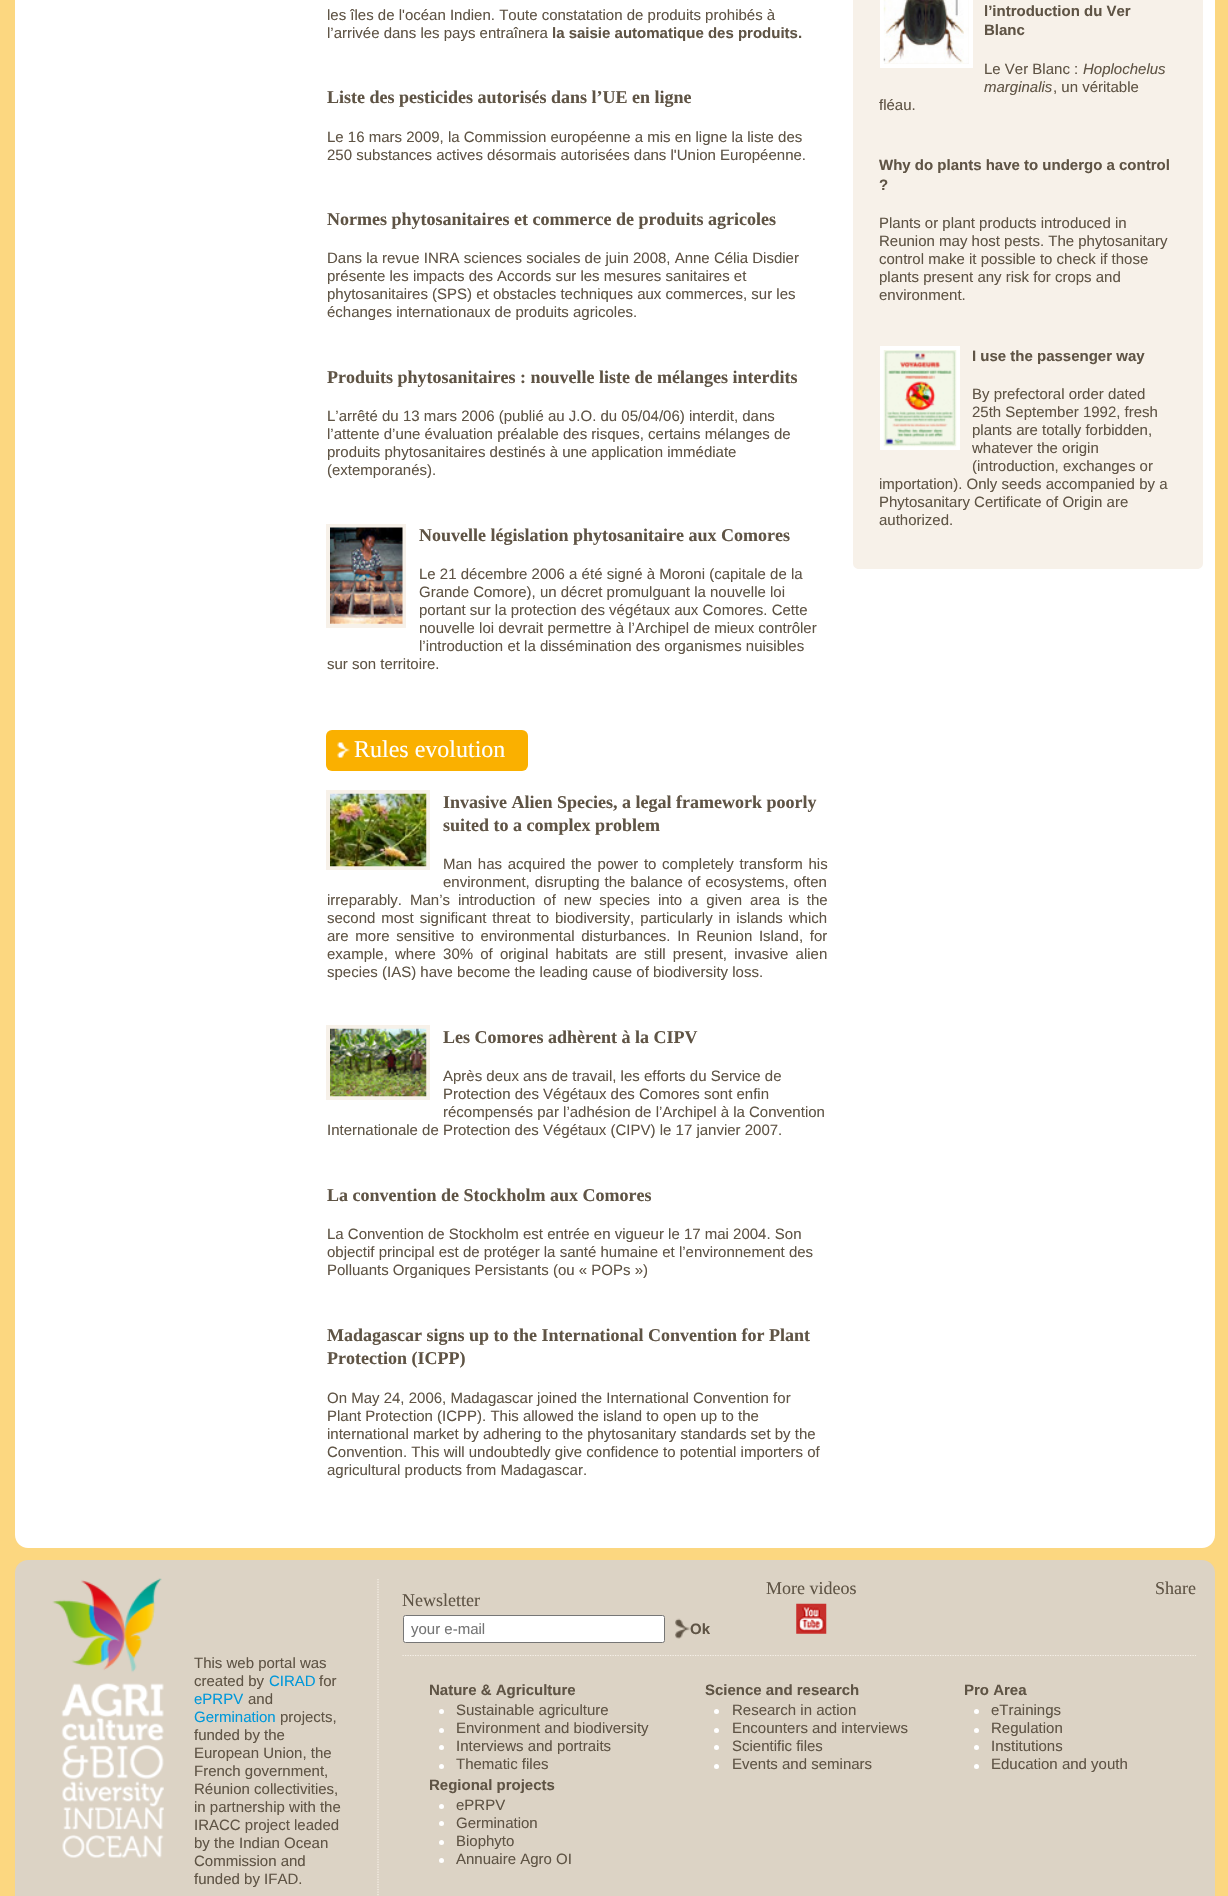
#include "include/core/SkBlurTypes.h"
#include "include/core/SkCanvas.h"
#include "include/core/SkData.h"
#include "include/core/SkFont.h"
#include "include/core/SkFontMgr.h"
#include "include/core/SkImage.h"
#include "include/core/SkMaskFilter.h"
#include "include/core/SkPaint.h"
#include "include/core/SkPathBuilder.h"
#include "include/core/SkTextBlob.h"
#include "include/effects/SkDashPathEffect.h"
#include "include/effects/SkGradientShader.h"
#include "include/utils/SkParsePath.h"

extern sk_sp<SkFontMgr> fontMgr;

void draw(SkCanvas* canvas) {
  SkPaint p;
  p.setAntiAlias(true);
  auto spacedText = [&](const char* s, float x, float y, const SkFont& font, const SkPaint& ink, float letter, float word) {
    std::vector<SkGlyphID> glyphs(font.countText(s, strlen(s), SkTextEncoding::kUTF8));
    std::vector<float> xs(glyphs.size());
    font.textToGlyphs(s, strlen(s), SkTextEncoding::kUTF8, glyphs);
    font.getXPos(glyphs, xs, x);
    float extra = 0;
    for (size_t i = 0; i < glyphs.size(); i++) {
      xs[i] += extra;
      extra += letter + word * (glyphs[i] == font.unicharToGlyph(' '));
    }
    canvas->drawTextBlob(SkTextBlob::MakeFromPosHGlyphs(glyphs, xs, y, font), 0, 0, ink);
  };
  canvas->clear(SkColorSetRGB(252, 215, 128));
  p.setColor(SK_ColorWHITE);
  canvas->drawPath(SkPathBuilder().moveTo(15, -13).lineTo(1215, -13).lineTo(1215, 1535).cubicTo(1215, 1542, 1209, 1548, 1202, 1548).lineTo(28, 1548).cubicTo(21, 1548, 15, 1542, 15, 1535).close().detach(), p);
  p.setStyle(SkPaint::kStroke_Style);
  p.setStrokeWidth(4);
  p.setColor(SkColorSetRGB(247, 241, 233));
  canvas->drawRect(SkRect::MakeLTRB(328, 526, 404, 626), p);
  canvas->drawImageRect(SkImages::DeferredFromEncodedData(SkData::MakeFromFileName("images/1.png")), SkRect::MakeLTRB(330, 527, 403, 624), SkSamplingOptions());
  p.setStyle(SkPaint::kFill_Style);
  p.setColor(SkColorSetRGB(250, 176, 0));
  canvas->drawRoundRect(SkRect::MakeLTRB(326, 730, 528, 771), 6, 6, p);
  canvas->drawImageRect(SkImages::DeferredFromEncodedData(SkData::MakeFromFileName("images/2.png")), SkRect::MakeLTRB(337, 742, 350, 758), SkSamplingOptions());
  p.setStyle(SkPaint::kStroke_Style);
  p.setColor(SkColorSetRGB(247, 241, 233));
  canvas->drawRect(SkRect::MakeLTRB(328, 792, 428, 868), p);
  canvas->drawImageRect(SkImages::DeferredFromEncodedData(SkData::MakeFromFileName("images/3.png")), SkRect::MakeLTRB(330, 793, 427, 867), SkSamplingOptions());
  canvas->drawRect(SkRect::MakeLTRB(328, 1027, 428, 1098), p);
  canvas->drawImageRect(SkImages::DeferredFromEncodedData(SkData::MakeFromFileName("images/4.png")), SkRect::MakeLTRB(330, 1028, 427, 1097), SkSamplingOptions());
  p.setStyle(SkPaint::kFill_Style);
  canvas->drawPath(SkPathBuilder().moveTo(859, -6).lineTo(1203, -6).lineTo(1203, 563).cubicTo(1203, 566.5f, 1200.5f, 569, 1197, 569).lineTo(859, 569).cubicTo(855.5f, 569, 853, 566.5f, 853, 563).lineTo(853, 0).cubicTo(853, -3.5f, 855.5f, -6, 859, -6).close().detach(), p);
  p.setStyle(SkPaint::kStroke_Style);
  p.setColor(SK_ColorWHITE);
  canvas->drawRect(SkRect::MakeLTRB(882, -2, 971, 66), p);
  canvas->drawImageRect(SkImages::DeferredFromEncodedData(SkData::MakeFromFileName("images/5.png")), SkRect::MakeLTRB(883, 0, 969, 64), SkSamplingOptions());
  canvas->drawRect(SkRect::MakeLTRB(882, 348, 958, 448), p);
  canvas->drawImageRect(SkImages::DeferredFromEncodedData(SkData::MakeFromFileName("images/6.png")), SkRect::MakeLTRB(883, 350, 957, 447), SkSamplingOptions());
  p.setStyle(SkPaint::kFill_Style);
  p.setColor(SkColorSetRGB(220, 211, 197));
  canvas->drawRoundRect(SkRect::MakeLTRB(15, 1560, 1215, 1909), 13, 13, p);
  p.setStyle(SkPaint::kStroke_Style);
  p.setStrokeWidth(1.2f);
  p.setColor(SkColorSetRGB(247, 241, 233));
  p.setPathEffect(SkDashPathEffect::Make({{1.25f, 1.25f}}, 0));
  canvas->drawPath(SkPathBuilder().moveTo(378, 1579).lineTo(378, 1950).detach(), p);
  p.setPathEffect(nullptr);
  canvas->drawImageRect(SkImages::DeferredFromEncodedData(SkData::MakeFromFileName("images/7.png")), SkRect::MakeLTRB(52, 1578, 164, 1858), SkSamplingOptions());
  p.setPathEffect(SkDashPathEffect::Make({{1.25f, 1.25f}}, 0));
  canvas->drawPath(SkPathBuilder().moveTo(402.5f, 1655.5f).lineTo(1196, 1655.5f).detach(), p);
  p.setPathEffect(nullptr);
  canvas->drawImageRect(SkImages::DeferredFromEncodedData(SkData::MakeFromFileName("images/8.png")), SkRect::MakeLTRB(796, 1603, 827, 1634), SkSamplingOptions());
  p.setStyle(SkPaint::kFill_Style);
  p.setColor(SK_ColorWHITE);
  canvas->drawRoundRect(SkRect::MakeLTRB(403.5f, 1615.5f, 664.5f, 1642.5f), 2, 2, p);
  p.setStyle(SkPaint::kStroke_Style);
  p.setStrokeWidth(1);
  p.setColor(SkColorSetRGB(118, 118, 118));
  canvas->drawRoundRect(SkRect::MakeLTRB(403.5f, 1615.5f, 664.5f, 1642.5f), 2, 2, p);
  canvas->drawImageRect(SkImages::DeferredFromEncodedData(SkData::MakeFromFileName("images/9.png")), SkRect::MakeLTRB(675, 1618, 690, 1639), SkSamplingOptions());
  p.setStyle(SkPaint::kFill_Style);
  p.setColor(SK_ColorWHITE);
  canvas->drawCircle(441.5f, 1711.5f, 2.5f, p);
  canvas->drawCircle(441.5f, 1730.5f, 2.5f, p);
  canvas->drawCircle(441.5f, 1747.5f, 2.5f, p);
  canvas->drawCircle(441.5f, 1766.5f, 2.5f, p);
  canvas->drawCircle(716.5f, 1711.5f, 2.5f, p);
  canvas->drawCircle(716.5f, 1730.5f, 2.5f, p);
  canvas->drawCircle(716.5f, 1747.5f, 2.5f, p);
  canvas->drawCircle(716.5f, 1766.5f, 2.5f, p);
  canvas->drawCircle(976.5f, 1711.5f, 2.5f, p);
  canvas->drawCircle(976.5f, 1730.5f, 2.5f, p);
  canvas->drawCircle(976.5f, 1747.5f, 2.5f, p);
  canvas->drawCircle(976.5f, 1766.5f, 2.5f, p);
  canvas->drawCircle(441.5f, 1806.5f, 2.5f, p);
  canvas->drawCircle(441.5f, 1823.5f, 2.5f, p);
  canvas->drawCircle(441.5f, 1842.5f, 2.5f, p);
  canvas->drawCircle(441.5f, 1860.5f, 2.5f, p);
  SkFont font1(fontMgr->matchFamilyStyle("Liberation Sans", SkFontStyle::Normal()), 15);
  font1.setSubpixel(true);
  p.setColor(SkColorSetRGB(95, 84, 69));
  canvas->drawString("les îles de l'océan Indien. Toute constatation de produits prohibés à", 327, 20, font1, p);
  canvas->drawString("l’arrivée dans les pays entraînera", 327, 38, font1, p);
  SkFont font2(fontMgr->matchFamilyStyle("Liberation Sans", SkFontStyle::Bold()), 15);
  font2.setSubpixel(true);
  canvas->drawString("la saisie automatique des produits.", 552, 38, font2, p);
  SkFont font3(fontMgr->matchFamilyStyle("Liberation Serif", SkFontStyle::Bold()), 18);
  font3.setSubpixel(true);
  canvas->drawString("Liste des pesticides autorisés dans l’UE en ligne", 327, 103, font3, p);
  canvas->drawString("Le 16 mars 2009, la Commission européenne a mis en ligne la liste des", 327, 142, font1, p);
  canvas->drawString("250 substances actives désormais autorisées dans l'Union Européenne.", 327, 160, font1, p);
  canvas->drawString("Normes phytosanitaires et commerce de produits agricoles", 327, 225, font3, p);
  canvas->drawString("Dans la revue INRA sciences sociales de juin 2008, Anne Célia Disdier", 327, 263, font1, p);
  canvas->drawString("présente les impacts des Accords sur les mesures sanitaires et", 327, 281, font1, p);
  canvas->drawString("phytosanitaires (SPS) et obstacles techniques aux commerces, sur les", 327, 299, font1, p);
  canvas->drawString("échanges internationaux de produits agricoles.", 327, 317, font1, p);
  canvas->drawString("Produits phytosanitaires : nouvelle liste de mélanges interdits", 327, 383, font3, p);
  canvas->drawString("L’arrêté du 13 mars 2006 (publié au J.O. du 05/04/06) interdit, dans", 327, 421, font1, p);
  canvas->drawString("l’attente d’une évaluation préalable des risques, certains mélanges de", 327, 439, font1, p);
  canvas->drawString("produits phytosanitaires destinés à une application immédiate", 327, 457, font1, p);
  canvas->drawString("(extemporanés).", 327, 475, font1, p);
  canvas->drawString("Nouvelle législation phytosanitaire aux Comores", 419, 541, font3, p);
  canvas->drawString("Le 21 décembre 2006 a été signé à Moroni (capitale de la", 419, 579, font1, p);
  canvas->drawString("Grande Comore), un décret promulguant la nouvelle loi", 419, 597, font1, p);
  canvas->drawString("portant sur la protection des végétaux aux Comores. Cette", 419, 615, font1, p);
  canvas->drawString("nouvelle loi devrait permettre à l’Archipel de mieux contrôler", 419, 633, font1, p);
  canvas->drawString("l’introduction et la dissémination des organismes nuisibles", 419, 651, font1, p);
  canvas->drawString("sur son territoire.", 327, 669, font1, p);
  SkFont font4(fontMgr->matchFamilyStyle("Liberation Serif", SkFontStyle::Normal()), 24);
  font4.setSubpixel(true);
  p.setColor(SK_ColorWHITE);
  canvas->drawString("Rules evolution", 354, 757, font4, p);
  p.setColor(SkColorSetRGB(95, 84, 69));
  canvas->drawString("Invasive Alien Species, a legal framework poorly", 443, 808, font3, p);
  canvas->drawString("suited to a complex problem", 443, 831, font3, p);
  spacedText("Man has acquired the power to completely transform his", 443, 869, font1, p, 0, 1.5f);
  spacedText("environment, disrupting the balance of ecosystems, often", 443, 887, font1, p, 0, 0.75f);
  spacedText("irreparably. Man’s introduction of new species into a given area is the", 327, 905, font1, p, 0, 3.75f);
  spacedText("second most significant threat to biodiversity, particularly in islands which", 327, 923, font1, p, 0, 1.75f);
  spacedText("are more sensitive to environmental disturbances. In Reunion Island, for", 327, 941, font1, p, 0, 2.5f);
  spacedText("example, where 30% of original habitats are still present, invasive alien", 327, 959, font1, p, 0, 3);
  canvas->drawString("species (IAS) have become the leading cause of biodiversity loss.", 327, 977, font1, p);
  canvas->drawString("Les Comores adhèrent à la CIPV", 443, 1043, font3, p);
  canvas->drawString("Après deux ans de travail, les efforts du Service de", 443, 1081, font1, p);
  canvas->drawString("Protection des Végétaux des Comores sont enfin", 443, 1099, font1, p);
  canvas->drawString("récompensés par l’adhésion de l’Archipel à la Convention", 443, 1117, font1, p);
  canvas->drawString("Internationale de Protection des Végétaux (CIPV) le 17 janvier 2007.", 327, 1135, font1, p);
  canvas->drawString("La convention de Stockholm aux Comores", 327, 1201, font3, p);
  canvas->drawString("La Convention de Stockholm est entrée en vigueur le 17 mai 2004. Son", 327, 1239, font1, p);
  canvas->drawString("objectif principal est de protéger la santé humaine et l’environnement des", 327, 1257, font1, p);
  canvas->drawString("Polluants Organiques Persistants (ou « POPs »)", 327, 1275, font1, p);
  canvas->drawString("Madagascar signs up to the International Convention for Plant", 327, 1341, font3, p);
  canvas->drawString("Protection (ICPP)", 327, 1364, font3, p);
  canvas->drawString("On May 24, 2006, Madagascar joined the International Convention for", 327, 1403, font1, p);
  canvas->drawString("Plant Protection (ICPP). This allowed the island to open up to the", 327, 1421, font1, p);
  canvas->drawString("international market by adhering to the phytosanitary standards set by the", 327, 1439, font1, p);
  canvas->drawString("Convention. This will undoubtedly give confidence to potential importers of", 327, 1457, font1, p);
  canvas->drawString("agricultural products from Madagascar.", 327, 1475, font1, p);
  canvas->drawString("l’introduction du Ver", 984, 16, font2, p);
  canvas->drawString("Blanc", 984, 35, font2, p);
  canvas->drawString("Le Ver Blanc :", 984, 74, font1, p);
  SkFont font5(fontMgr->matchFamilyStyle("Liberation Sans", SkFontStyle::Italic()), 15);
  font5.setSubpixel(true);
  canvas->drawString("Hoplochelus", 1083, 74, font5, p);
  canvas->drawString("marginalis", 984, 92, font5, p);
  canvas->drawString(", un véritable", 1053, 92, font1, p);
  canvas->drawString("fléau.", 879, 110, font1, p);
  canvas->drawString("Why do plants have to undergo a control", 879, 170, font2, p);
  canvas->drawString("?", 879, 190, font2, p);
  canvas->drawString("Plants or plant products introduced in", 879, 228, font1, p);
  canvas->drawString("Reunion may host pests. The phytosanitary", 879, 246, font1, p);
  canvas->drawString("control make it possible to check if those", 879, 264, font1, p);
  canvas->drawString("plants present any risk for crops and", 879, 282, font1, p);
  canvas->drawString("environment.", 879, 300, font1, p);
  canvas->drawString("I use the passenger way", 972, 361, font2, p);
  canvas->drawString("By prefectoral order dated", 972, 399, font1, p);
  canvas->drawString("25th September 1992, fresh", 972, 417, font1, p);
  canvas->drawString("plants are totally forbidden,", 972, 435, font1, p);
  canvas->drawString("whatever the origin", 972, 453, font1, p);
  canvas->drawString("(introduction, exchanges or", 972, 471, font1, p);
  canvas->drawString("importation). Only seeds accompanied by a", 879, 489, font1, p);
  canvas->drawString("Phytosanitary Certificate of Origin are", 879, 507, font1, p);
  canvas->drawString("authorized.", 879, 525, font1, p);
  canvas->drawString("This web portal was", 194, 1668, font1, p);
  canvas->drawString("created by", 194, 1686, font1, p);
  p.setColor(SkColorSetRGB(0, 152, 218));
  canvas->drawString("CIRAD", 269, 1686, font1, p);
  p.setColor(SkColorSetRGB(95, 84, 69));
  canvas->drawString("for", 319, 1686, font1, p);
  p.setColor(SkColorSetRGB(0, 152, 218));
  canvas->drawString("ePRPV", 194, 1704, font1, p);
  p.setColor(SkColorSetRGB(95, 84, 69));
  canvas->drawString("and", 248, 1704, font1, p);
  p.setColor(SkColorSetRGB(0, 152, 218));
  canvas->drawString("Germination", 194, 1722, font1, p);
  p.setColor(SkColorSetRGB(95, 84, 69));
  canvas->drawString("projects,", 280, 1722, font1, p);
  canvas->drawString("funded by the", 194, 1740, font1, p);
  canvas->drawString("European Union, the", 194, 1758, font1, p);
  canvas->drawString("French government,", 194, 1776, font1, p);
  canvas->drawString("Réunion collectivities,", 194, 1794, font1, p);
  canvas->drawString("in partnership with the", 194, 1812, font1, p);
  canvas->drawString("IRACC project leaded", 194, 1830, font1, p);
  canvas->drawString("by the Indian Ocean", 194, 1848, font1, p);
  canvas->drawString("Commission and", 194, 1866, font1, p);
  canvas->drawString("funded by IFAD.", 194, 1884, font1, p);
  SkFont font6(fontMgr->matchFamilyStyle("Liberation Serif", SkFontStyle::Normal()), 18);
  font6.setSubpixel(true);
  canvas->drawString("More videos", 766, 1594, font6, p);
  canvas->drawString("Share", 1155, 1594, font6, p);
  canvas->drawString("Newsletter", 402, 1606, font6, p);
  p.setColor(SkColorSetRGB(117, 117, 117));
  canvas->drawString("your e-mail", 411, 1634, font1, p);
  p.setColor(SkColorSetRGB(95, 84, 69));
  canvas->drawString("Ok", 690, 1634, font2, p);
  canvas->drawString("Nature & Agriculture", 429, 1695, font2, p);
  canvas->drawString("Sustainable agriculture", 456, 1715, font1, p);
  canvas->drawString("Environment and biodiversity", 456, 1733, font1, p);
  canvas->drawString("Interviews and portraits", 456, 1751, font1, p);
  canvas->drawString("Thematic files", 456, 1769, font1, p);
  canvas->drawString("Science and research", 705, 1695, font2, p);
  canvas->drawString("Research in action", 732, 1715, font1, p);
  canvas->drawString("Encounters and interviews", 732, 1733, font1, p);
  canvas->drawString("Scientific files", 732, 1751, font1, p);
  canvas->drawString("Events and seminars", 732, 1769, font1, p);
  canvas->drawString("Pro Area", 964, 1695, font2, p);
  canvas->drawString("eTrainings", 991, 1715, font1, p);
  canvas->drawString("Regulation", 991, 1733, font1, p);
  canvas->drawString("Institutions", 991, 1751, font1, p);
  canvas->drawString("Education and youth", 991, 1769, font1, p);
  canvas->drawString("Regional projects", 429, 1790, font2, p);
  canvas->drawString("ePRPV", 456, 1810, font1, p);
  canvas->drawString("Germination", 456, 1828, font1, p);
  canvas->drawString("Biophyto", 456, 1846, font1, p);
  canvas->drawString("Annuaire Agro OI", 456, 1864, font1, p);
}
